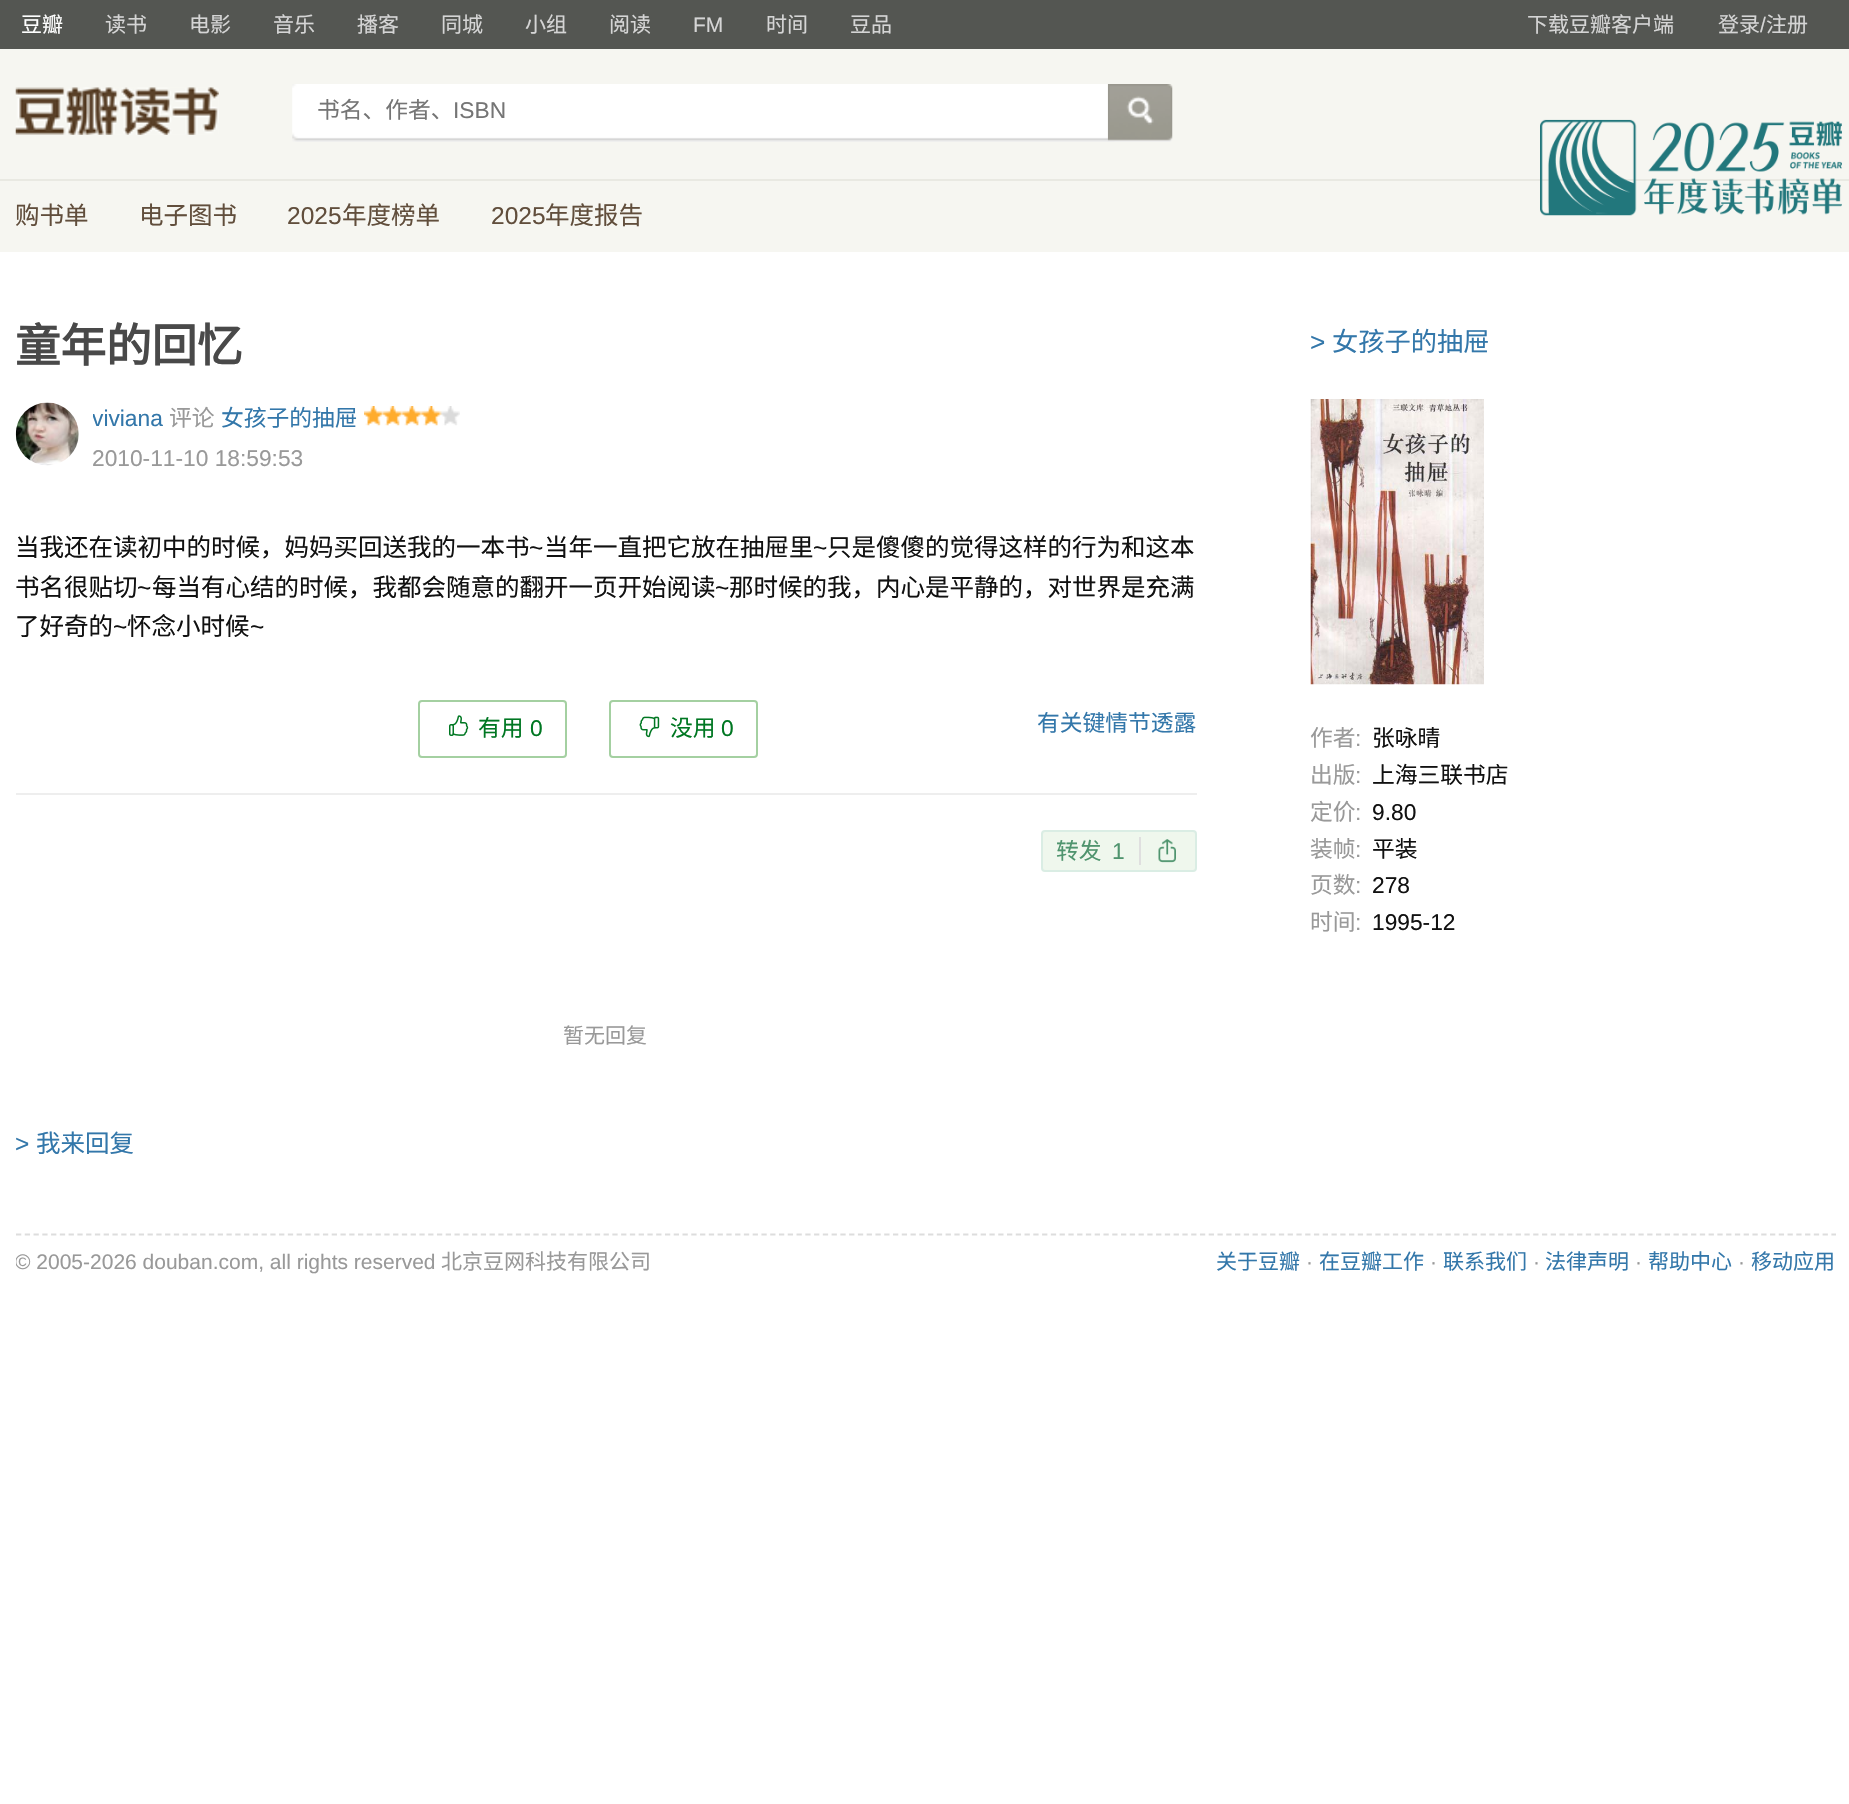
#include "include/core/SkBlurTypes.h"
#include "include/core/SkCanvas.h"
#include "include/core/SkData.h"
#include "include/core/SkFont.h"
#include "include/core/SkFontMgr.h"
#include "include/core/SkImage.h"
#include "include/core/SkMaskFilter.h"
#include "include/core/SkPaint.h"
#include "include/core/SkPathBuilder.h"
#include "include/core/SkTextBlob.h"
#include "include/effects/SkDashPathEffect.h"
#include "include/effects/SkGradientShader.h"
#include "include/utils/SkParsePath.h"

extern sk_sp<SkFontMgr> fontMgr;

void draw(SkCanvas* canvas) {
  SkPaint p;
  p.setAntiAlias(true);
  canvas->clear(SK_ColorWHITE);
  p.setColor(SkColorSetRGB(84, 86, 82));
  canvas->drawRect(SkRect::MakeLTRB(0, 0, 1849, 49), p);
  p.setColor(SkColorSetRGB(246, 246, 241));
  canvas->drawRect(SkRect::MakeLTRB(0, 49, 1849, 252), p);
  p.setColor(SkColorSetRGB(233, 233, 226));
  canvas->drawRect(SkRect::MakeLTRB(0, 179, 1849, 181), p);
  canvas->drawImageRect(SkImages::DeferredFromEncodedData(SkData::MakeFromFileName("images/1.png")), SkRect::MakeLTRB(15, 87, 219, 135), SkSamplingOptions());
  canvas->drawImageRect(SkImages::DeferredFromEncodedData(SkData::MakeFromFileName("images/2.png")), SkRect::MakeLTRB(292, 84, 1115, 142), SkSamplingOptions());
  canvas->drawImageRect(SkImages::DeferredFromEncodedData(SkData::MakeFromFileName("images/3.png")), SkRect::MakeLTRB(1107, 84, 1173, 142), SkSamplingOptions());
  canvas->drawImageRect(SkImages::DeferredFromEncodedData(SkData::MakeFromFileName("images/4.png")), SkRect::MakeLTRB(1540, 119, 1842, 216), SkSamplingOptions());
  canvas->drawImageRect(SkImages::DeferredFromEncodedData(SkData::MakeFromFileName("images/5.png")), SkRect::MakeLTRB(15, 402, 79, 466), SkSamplingOptions());
  canvas->drawImageRect(SkImages::DeferredFromEncodedData(SkData::MakeFromFileName("images/6.png")), SkRect::MakeLTRB(364, 406, 460, 426), SkSamplingOptions());
  p.setColor(SkColorSetRGB(238, 238, 238));
  canvas->drawRect(SkRect::MakeLTRB(16, 793, 1197, 795), p);
  p.setStyle(SkPaint::kStroke_Style);
  p.setStrokeWidth(2);
  p.setColor(SkColorSetRGB(164, 208, 161));
  canvas->drawRoundRect(SkRect::MakeLTRB(419, 701, 566, 757), 3, 3, p);
  canvas->drawImageRect(SkImages::DeferredFromEncodedData(SkData::MakeFromFileName("images/7.png")), SkRect::MakeLTRB(449, 715, 469, 736), SkSamplingOptions());
  canvas->drawRoundRect(SkRect::MakeLTRB(610, 701, 757, 757), 3, 3, p);
  canvas->drawImageRect(SkImages::DeferredFromEncodedData(SkData::MakeFromFileName("images/8.png")), SkRect::MakeLTRB(639, 716, 660, 738), SkSamplingOptions());
  p.setStyle(SkPaint::kFill_Style);
  p.setColor(SkColorSetRGB(239, 247, 237));
  canvas->drawRoundRect(SkRect::MakeLTRB(1042, 831, 1196, 871), 3, 3, p);
  p.setStyle(SkPaint::kStroke_Style);
  p.setColor(SkColorSetRGB(218, 237, 228));
  canvas->drawRoundRect(SkRect::MakeLTRB(1042, 831, 1196, 871), 3, 3, p);
  p.setStyle(SkPaint::kFill_Style);
  p.setColor(SkColorSetRGB(223, 223, 223));
  canvas->drawRect(SkRect::MakeLTRB(1139, 837, 1141, 865), p);
  canvas->drawImageRect(SkImages::DeferredFromEncodedData(SkData::MakeFromFileName("images/9.png")), SkRect::MakeLTRB(1158, 839, 1176, 863), SkSamplingOptions());
  canvas->drawImageRect(SkImages::DeferredFromEncodedData(SkData::MakeFromFileName("images/10.png")), SkRect::MakeLTRB(1310, 399, 1484, 685), SkSamplingOptions());
  p.setStyle(SkPaint::kStroke_Style);
  p.setStrokeWidth(1.8f);
  p.setColor(SkColorSetRGB(221, 221, 221));
  p.setPathEffect(SkDashPathEffect::Make({{5.25f, 3.52f}}, 0));
  canvas->drawPath(SkPathBuilder().moveTo(16, 1234.5f).lineTo(1836, 1234.5f).detach(), p);
  p.setPathEffect(nullptr);
  SkFont font1(fontMgr->matchFamilyStyle("Noto Sans CJK SC", SkFontStyle::Normal()), 21);
  font1.setSubpixel(true);
  p.setStyle(SkPaint::kFill_Style);
  p.setColor(SK_ColorWHITE);
  canvas->drawString("豆瓣", 21, 32, font1, p);
  p.setColor(SkColorSetRGB(213, 213, 213));
  canvas->drawString("读书", 105, 32, font1, p);
  canvas->drawString("电影", 189, 32, font1, p);
  canvas->drawString("音乐", 273, 32, font1, p);
  canvas->drawString("播客", 357, 32, font1, p);
  canvas->drawString("同城", 441, 32, font1, p);
  canvas->drawString("小组", 525, 32, font1, p);
  canvas->drawString("阅读", 609, 32, font1, p);
  SkFont font2(fontMgr->matchFamilyStyle("Liberation Sans", SkFontStyle::Normal()), 21);
  font2.setSubpixel(true);
  canvas->drawString("FM", 693, 32, font2, p);
  canvas->drawString("时间", 766, 32, font1, p);
  canvas->drawString("豆品", 850, 32, font1, p);
  canvas->drawString("下载豆瓣客户端", 1527, 32, font1, p);
  canvas->drawString("登录", 1718, 32, font1, p);
  canvas->drawString("/", 1760, 32, font2, p);
  canvas->drawString("注册", 1766, 32, font1, p);
  SkFont font3(fontMgr->matchFamilyStyle("Noto Sans CJK SC", SkFontStyle::Normal()), 22.75f);
  font3.setSubpixel(true);
  p.setColor(SkColorSetRGB(117, 117, 117));
  canvas->drawString("书名、作者、", 317, 118, font3, p);
  SkFont font4(fontMgr->matchFamilyStyle("Liberation Sans", SkFontStyle::Normal()), 22.75f);
  font4.setSubpixel(true);
  canvas->drawString("ISBN", 453, 118, font4, p);
  SkFont font5(fontMgr->matchFamilyStyle("Noto Sans CJK SC", SkFontStyle::Normal()), 24.5f);
  font5.setSubpixel(true);
  p.setColor(SkColorSetRGB(97, 78, 60));
  canvas->drawString("购书单", 15, 224, font5, p);
  canvas->drawString("电子图书", 139, 224, font5, p);
  SkFont font6(fontMgr->matchFamilyStyle("Liberation Sans", SkFontStyle::Normal()), 24.5f);
  font6.setSubpixel(true);
  canvas->drawString("2025", 287, 224, font6, p);
  canvas->drawString("年度榜单", 342, 224, font5, p);
  canvas->drawString("2025", 491, 224, font6, p);
  canvas->drawString("年度报告", 545, 224, font5, p);
  SkFont font7(fontMgr->matchFamilyStyle("Noto Sans CJK SC", SkFontStyle::Bold()), 45.5f);
  font7.setSubpixel(true);
  p.setColor(SkColorSetRGB(73, 73, 73));
  canvas->drawString("童年的回忆", 15, 362, font7, p);
  canvas->save();
  canvas->clipRect(SkRect::MakeLTRB(93, 403, 1197, 476));
  p.setColor(SkColorSetRGB(51, 119, 170));
  canvas->drawString("viviana", 92, 426, font4, p);
  canvas->restore();
  p.setColor(SkColorSetRGB(153, 153, 153));
  canvas->drawString("评论", 169, 426, font3, p);
  p.setColor(SkColorSetRGB(51, 119, 170));
  canvas->drawString("女孩子的抽屉", 221, 426, font3, p);
  p.setColor(SkColorSetRGB(153, 153, 153));
  canvas->drawString("2010-11-10 18:59:53", 92, 466, font4, p);
  p.setColor(SkColorSetRGB(17, 17, 17));
  canvas->drawString("当我还在读初中的时候，妈妈买回送我的一本书", 15, 556, font5, p);
  canvas->drawString("~", 529, 556, font6, p);
  canvas->drawString("当年一直把它放在抽屉里", 544, 556, font5, p);
  canvas->drawString("~", 813, 556, font6, p);
  canvas->drawString("只是傻傻的觉得这样的行为和这本", 827, 556, font5, p);
  canvas->drawString("书名很贴切", 15, 596, font5, p);
  canvas->drawString("~", 137, 596, font6, p);
  canvas->drawString("每当有心结的时候，我都会随意的翻开一页开始阅读", 152, 596, font5, p);
  canvas->drawString("~", 715, 596, font6, p);
  canvas->drawString("那时候的我，内心是平静的，对世界是充满", 729, 596, font5, p);
  canvas->drawString("了好奇的", 15, 635, font5, p);
  canvas->drawString("~", 113, 635, font6, p);
  canvas->drawString("怀念小时候", 127, 635, font5, p);
  canvas->drawString("~", 250, 635, font6, p);
  p.setColor(SkColorSetRGB(0, 119, 34));
  canvas->drawString("有用", 478, 736, font3, p);
  canvas->drawString("0", 530, 736, font4, p);
  canvas->drawString("没用", 670, 736, font3, p);
  canvas->drawString("0", 721, 736, font4, p);
  p.setColor(SkColorSetRGB(51, 119, 170));
  canvas->drawString("有关键情节透露", 1037, 731, font3, p);
  p.setColor(SkColorSetRGB(79, 148, 110));
  canvas->drawString("转发", 1056, 859, font3, p);
  canvas->drawString("1", 1112, 859, font4, p);
  p.setColor(SkColorSetRGB(153, 153, 153));
  canvas->drawString("暂无回复", 563, 1043, font1, p);
  p.setColor(SkColorSetRGB(51, 119, 170));
  canvas->drawString(">", 15, 1152, font6, p);
  canvas->drawString("我来回复", 36, 1152, font5, p);
  SkFont font8(fontMgr->matchFamilyStyle("Liberation Sans", SkFontStyle::Normal()), 26.25f);
  font8.setSubpixel(true);
  canvas->drawString(">", 1310, 351, font8, p);
  SkFont font9(fontMgr->matchFamilyStyle("Noto Sans CJK SC", SkFontStyle::Normal()), 26.25f);
  font9.setSubpixel(true);
  canvas->drawString("女孩子的抽屉", 1332, 351, font9, p);
  p.setColor(SkColorSetRGB(153, 153, 153));
  canvas->drawString("作者", 1310, 746, font3, p);
  canvas->drawString(":", 1355, 746, font4, p);
  p.setColor(SkColorSetRGB(17, 17, 17));
  canvas->drawString("张咏晴", 1372, 746, font3, p);
  p.setColor(SkColorSetRGB(153, 153, 153));
  canvas->drawString("出版", 1310, 783, font3, p);
  canvas->drawString(":", 1355, 783, font4, p);
  p.setColor(SkColorSetRGB(17, 17, 17));
  canvas->drawString("上海三联书店", 1372, 783, font3, p);
  p.setColor(SkColorSetRGB(153, 153, 153));
  canvas->drawString("定价", 1310, 820, font3, p);
  canvas->drawString(":", 1355, 820, font4, p);
  p.setColor(SkColorSetRGB(17, 17, 17));
  canvas->drawString("9.80", 1372, 820, font4, p);
  p.setColor(SkColorSetRGB(153, 153, 153));
  canvas->drawString("装帧", 1310, 857, font3, p);
  canvas->drawString(":", 1355, 857, font4, p);
  p.setColor(SkColorSetRGB(17, 17, 17));
  canvas->drawString("平装", 1372, 857, font3, p);
  p.setColor(SkColorSetRGB(153, 153, 153));
  canvas->drawString("页数", 1310, 893, font3, p);
  canvas->drawString(":", 1355, 893, font4, p);
  p.setColor(SkColorSetRGB(17, 17, 17));
  canvas->drawString("278", 1372, 893, font4, p);
  p.setColor(SkColorSetRGB(153, 153, 153));
  canvas->drawString("时间", 1310, 930, font3, p);
  canvas->drawString(":", 1355, 930, font4, p);
  p.setColor(SkColorSetRGB(17, 17, 17));
  canvas->drawString("1995-12", 1372, 930, font4, p);
  canvas->save();
  canvas->clipRect(SkRect::MakeLTRB(16, 1236, 1836, 1290));
  p.setColor(SkColorSetRGB(153, 153, 153));
  canvas->drawString("© 2005-2026 douban.com, all rights reserved", 15, 1269, font2, p);
  canvas->restore();
  canvas->drawString("北京豆网科技有限公司", 441, 1269, font1, p);
  p.setColor(SkColorSetRGB(51, 119, 170));
  canvas->drawString("关于豆瓣", 1216, 1269, font1, p);
  p.setColor(SkColorSetRGB(153, 153, 153));
  canvas->drawString("·", 1306, 1269, font2, p);
  p.setColor(SkColorSetRGB(51, 119, 170));
  canvas->drawString("在豆瓣工作", 1319, 1269, font1, p);
  p.setColor(SkColorSetRGB(153, 153, 153));
  canvas->drawString("·", 1430, 1269, font2, p);
  p.setColor(SkColorSetRGB(51, 119, 170));
  canvas->drawString("联系我们", 1443, 1269, font1, p);
  p.setColor(SkColorSetRGB(153, 153, 153));
  canvas->drawString("·", 1533, 1269, font2, p);
  p.setColor(SkColorSetRGB(51, 119, 170));
  canvas->drawString("法律声明", 1545, 1269, font1, p);
  p.setColor(SkColorSetRGB(153, 153, 153));
  canvas->drawString("·", 1635, 1269, font2, p);
  p.setColor(SkColorSetRGB(51, 119, 170));
  canvas->drawString("帮助中心", 1648, 1269, font1, p);
  p.setColor(SkColorSetRGB(153, 153, 153));
  canvas->drawString("·", 1738, 1269, font2, p);
  p.setColor(SkColorSetRGB(51, 119, 170));
  canvas->drawString("移动应用", 1751, 1269, font1, p);
}
